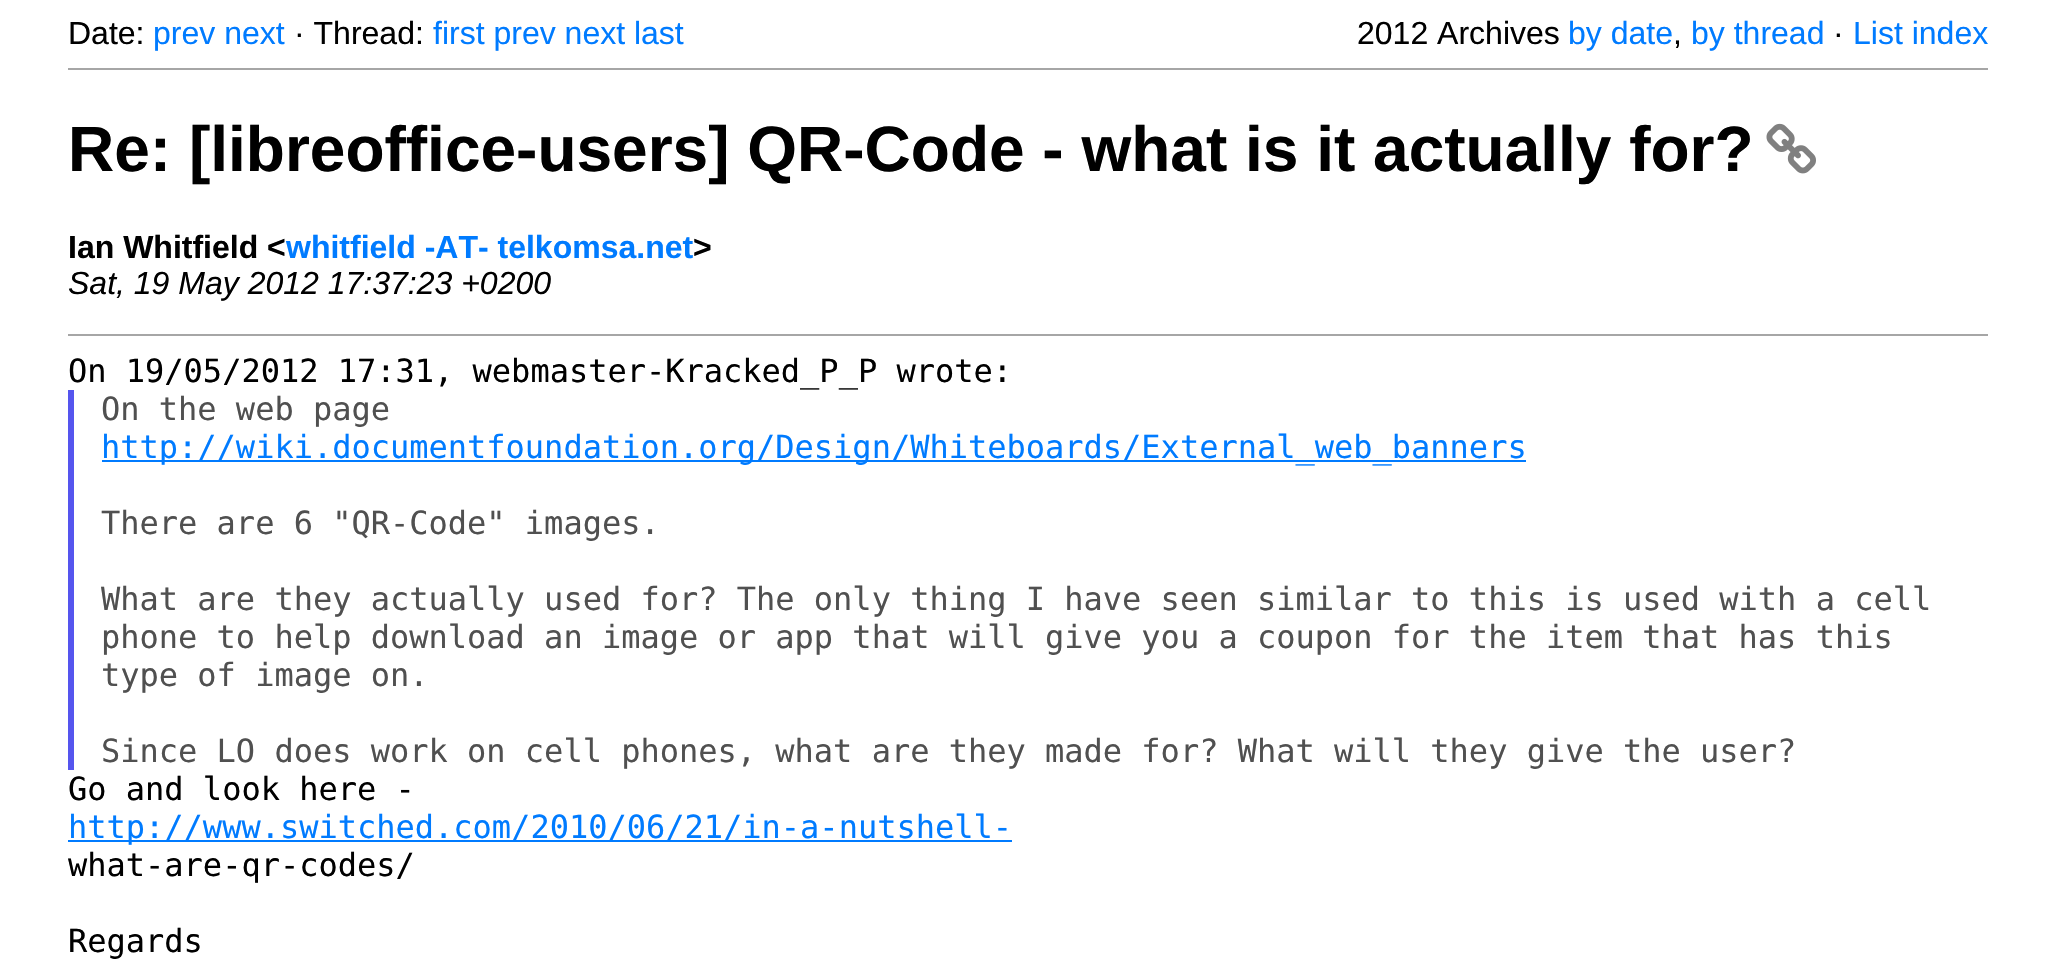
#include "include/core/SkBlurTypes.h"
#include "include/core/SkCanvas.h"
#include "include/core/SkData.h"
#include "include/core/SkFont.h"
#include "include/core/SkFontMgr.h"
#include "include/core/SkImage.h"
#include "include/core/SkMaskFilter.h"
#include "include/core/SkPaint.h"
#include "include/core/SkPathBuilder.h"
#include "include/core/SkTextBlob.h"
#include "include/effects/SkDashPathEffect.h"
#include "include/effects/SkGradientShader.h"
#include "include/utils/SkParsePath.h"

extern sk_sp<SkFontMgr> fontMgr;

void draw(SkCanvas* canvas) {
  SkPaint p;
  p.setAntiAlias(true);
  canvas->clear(SK_ColorWHITE);
  p.setColor(SkColorSetRGB(166, 166, 166));
  canvas->drawRect(SkRect::MakeLTRB(68, 68, 1988, 70), p);
  canvas->drawImageRect(SkImages::DeferredFromEncodedData(SkData::MakeFromFileName("images/1.png")), SkRect::MakeLTRB(1766, 123, 1816, 174), SkSamplingOptions());
  canvas->drawRect(SkRect::MakeLTRB(68, 334, 1988, 336), p);
  p.setColor(SkColorSetRGB(85, 85, 238));
  canvas->drawRect(SkRect::MakeLTRB(68, 390, 74, 770), p);
  p.setColor(SkColorSetRGB(0, 123, 255));
  canvas->drawRect(SkRect::MakeLTRB(102, 460, 1526, 462), p);
  canvas->drawRect(SkRect::MakeLTRB(68, 840, 1012, 842), p);
  SkFont font1(fontMgr->matchFamilyStyle("Liberation Sans", SkFontStyle::Normal()), 32);
  font1.setSubpixel(true);
  p.setColor(SK_ColorBLACK);
  canvas->drawString("Date:", 68, 44, font1, p);
  p.setColor(SkColorSetRGB(0, 123, 255));
  canvas->drawString("prev next", 153, 44, font1, p);
  p.setColor(SK_ColorBLACK);
  canvas->drawString("· Thread:", 294, 44, font1, p);
  p.setColor(SkColorSetRGB(0, 123, 255));
  canvas->drawString("first prev next last", 433, 44, font1, p);
  p.setColor(SK_ColorBLACK);
  canvas->drawString("2012 Archives", 1357, 44, font1, p);
  p.setColor(SkColorSetRGB(0, 123, 255));
  canvas->drawString("by date", 1568, 44, font1, p);
  canvas->drawString("by thread", 1691, 44, font1, p);
  p.setColor(SK_ColorBLACK);
  canvas->drawString("·", 1833, 44, font1, p);
  p.setColor(SkColorSetRGB(0, 123, 255));
  canvas->drawString("List index", 1853, 44, font1, p);
  p.setColor(SK_ColorBLACK);
  canvas->drawString(",", 1673, 44, font1, p);
  SkFont font2(fontMgr->matchFamilyStyle("Liberation Sans", SkFontStyle::Bold()), 64);
  font2.setSubpixel(true);
  canvas->drawString("Re: [libreoffice-users] QR-Code - what is it actually for?", 68, 171, font2, p);
  SkFont font3(fontMgr->matchFamilyStyle("Liberation Sans", SkFontStyle::Bold()), 32);
  font3.setSubpixel(true);
  canvas->drawString("Ian Whitfield <", 68, 258, font3, p);
  p.setColor(SkColorSetRGB(0, 123, 255));
  canvas->drawString("whitfield -AT- telkomsa.net", 286, 258, font3, p);
  p.setColor(SK_ColorBLACK);
  canvas->drawString(">", 693, 258, font3, p);
  SkFont font4(fontMgr->matchFamilyStyle("Liberation Sans", SkFontStyle::Italic()), 32);
  font4.setSubpixel(true);
  canvas->drawString("Sat, 19 May 2012 17:37:23 +0200", 68, 294, font4, p);
  SkFont font5(fontMgr->matchFamilyStyle("DejaVu Sans Mono", SkFontStyle::Normal()), 32);
  font5.setSubpixel(true);
  canvas->drawString("On 19/05/2012 17:31, webmaster-Kracked_P_P wrote:", 68, 382, font5, p);
  p.setColor(SkColorSetRGB(80, 80, 80));
  canvas->drawString("On the web page", 101, 420, font5, p);
  p.setColor(SkColorSetRGB(0, 123, 255));
  canvas->drawString("http://wiki.documentfoundation.org/Design/Whiteboards/External_web_banners", 101, 458, font5, p);
  p.setColor(SkColorSetRGB(80, 80, 80));
  canvas->drawString("There are 6 \"QR-Code\" images.", 101, 534, font5, p);
  canvas->drawString("What are they actually used for? The only thing I have seen similar to this is used with a cell", 101, 610, font5, p);
  canvas->drawString("phone to help download an image or app that will give you a coupon for the item that has this", 101, 648, font5, p);
  canvas->drawString("type of image on.", 101, 686, font5, p);
  canvas->drawString("Since LO does work on cell phones, what are they made for? What will they give the user?", 101, 762, font5, p);
  p.setColor(SK_ColorBLACK);
  canvas->drawString("Go and look here -", 68, 800, font5, p);
  p.setColor(SkColorSetRGB(0, 123, 255));
  canvas->drawString("http://www.switched.com/2010/06/21/in-a-nutshell-", 68, 838, font5, p);
  p.setColor(SK_ColorBLACK);
  canvas->drawString("what-are-qr-codes/", 68, 876, font5, p);
  canvas->drawString("Regards", 68, 952, font5, p);
}
